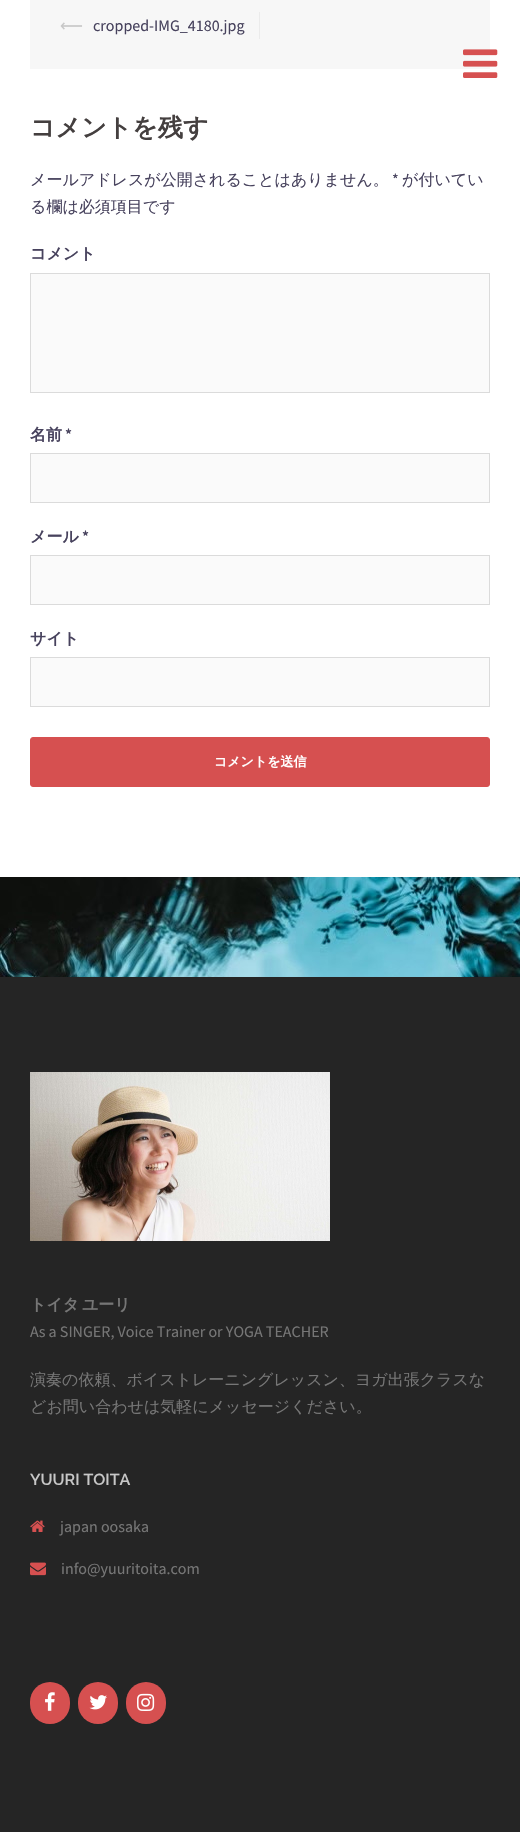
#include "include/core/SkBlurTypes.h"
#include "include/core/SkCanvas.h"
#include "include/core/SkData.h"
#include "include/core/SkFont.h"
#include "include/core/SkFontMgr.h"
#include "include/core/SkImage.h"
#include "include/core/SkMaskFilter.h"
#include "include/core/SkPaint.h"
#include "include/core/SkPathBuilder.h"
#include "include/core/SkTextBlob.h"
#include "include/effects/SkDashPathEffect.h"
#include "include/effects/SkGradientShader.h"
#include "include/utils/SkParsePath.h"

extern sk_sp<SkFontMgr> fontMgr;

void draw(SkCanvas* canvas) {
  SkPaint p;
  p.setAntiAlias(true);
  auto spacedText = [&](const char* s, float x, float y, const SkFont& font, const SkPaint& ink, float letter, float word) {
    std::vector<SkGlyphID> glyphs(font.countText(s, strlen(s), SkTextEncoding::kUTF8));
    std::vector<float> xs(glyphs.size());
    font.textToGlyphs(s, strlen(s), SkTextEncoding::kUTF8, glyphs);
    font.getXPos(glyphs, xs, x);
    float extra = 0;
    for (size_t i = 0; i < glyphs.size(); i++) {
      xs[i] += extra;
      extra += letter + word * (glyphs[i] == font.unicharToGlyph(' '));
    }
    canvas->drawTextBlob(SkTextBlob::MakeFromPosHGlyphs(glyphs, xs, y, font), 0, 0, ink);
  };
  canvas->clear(SK_ColorWHITE);
  canvas->drawImageRect(SkImages::DeferredFromEncodedData(SkData::MakeFromFileName("images/1.png")), SkRect::MakeLTRB(0, 877, 520, 977), SkSamplingOptions());
  p.setColor(SkColorSetRGB(247, 247, 247));
  canvas->drawRect(SkRect::MakeLTRB(30, 0, 490, 69), p);
  p.setColor(SkColorSetRGB(235, 235, 235));
  canvas->drawRect(SkRect::MakeLTRB(259, 12, 260, 39), p);
  p.setColor(SkColorSetRGB(250, 250, 250));
  canvas->drawRect(SkRect::MakeLTRB(30.5f, 273.5f, 489.5f, 392.5f), p);
  p.setStyle(SkPaint::kStroke_Style);
  p.setStrokeWidth(1);
  p.setColor(SkColorSetRGB(219, 219, 219));
  canvas->drawRect(SkRect::MakeLTRB(30.5f, 273.5f, 489.5f, 392.5f), p);
  p.setStyle(SkPaint::kFill_Style);
  p.setColor(SkColorSetRGB(250, 250, 250));
  canvas->drawRect(SkRect::MakeLTRB(30.5f, 453.5f, 489.5f, 502.5f), p);
  p.setStyle(SkPaint::kStroke_Style);
  p.setColor(SkColorSetRGB(219, 219, 219));
  canvas->drawRect(SkRect::MakeLTRB(30.5f, 453.5f, 489.5f, 502.5f), p);
  p.setStyle(SkPaint::kFill_Style);
  p.setColor(SkColorSetRGB(250, 250, 250));
  canvas->drawRect(SkRect::MakeLTRB(30.5f, 555.5f, 489.5f, 604.5f), p);
  p.setStyle(SkPaint::kStroke_Style);
  p.setColor(SkColorSetRGB(219, 219, 219));
  canvas->drawRect(SkRect::MakeLTRB(30.5f, 555.5f, 489.5f, 604.5f), p);
  p.setStyle(SkPaint::kFill_Style);
  p.setColor(SkColorSetRGB(250, 250, 250));
  canvas->drawRect(SkRect::MakeLTRB(30.5f, 657.5f, 489.5f, 706.5f), p);
  p.setStyle(SkPaint::kStroke_Style);
  p.setColor(SkColorSetRGB(219, 219, 219));
  canvas->drawRect(SkRect::MakeLTRB(30.5f, 657.5f, 489.5f, 706.5f), p);
  p.setStyle(SkPaint::kFill_Style);
  p.setColor(SkColorSetRGB(214, 80, 80));
  canvas->drawRoundRect(SkRect::MakeLTRB(30.5f, 737.5f, 489.5f, 786.5f), 2.5f, 2.5f, p);
  p.setStyle(SkPaint::kStroke_Style);
  canvas->drawRoundRect(SkRect::MakeLTRB(30.5f, 737.5f, 489.5f, 786.5f), 2.5f, 2.5f, p);
  canvas->drawImageRect(SkImages::DeferredFromEncodedData(SkData::MakeFromFileName("images/2.png")), SkRect::MakeLTRB(463, 49, 498, 78), SkSamplingOptions());
  p.setStyle(SkPaint::kFill_Style);
  p.setColor(SkColorSetRGB(37, 37, 37));
  canvas->drawRect(SkRect::MakeLTRB(0, 977, 520, 1832), p);
  canvas->drawImageRect(SkImages::DeferredFromEncodedData(SkData::MakeFromFileName("images/3.png")), SkRect::MakeLTRB(30, 1072, 330, 1241), SkSamplingOptions());
  canvas->drawImageRect(SkImages::DeferredFromEncodedData(SkData::MakeFromFileName("images/4.png")), SkRect::MakeLTRB(30, 1520, 45, 1532), SkSamplingOptions());
  canvas->drawImageRect(SkImages::DeferredFromEncodedData(SkData::MakeFromFileName("images/5.png")), SkRect::MakeLTRB(30, 1562, 46, 1576), SkSamplingOptions());
  p.setColor(SkColorSetRGB(214, 80, 80));
  canvas->drawRoundRect(SkRect::MakeLTRB(30, 1682, 70, 1724), 20, 20, p);
  canvas->drawImageRect(SkImages::DeferredFromEncodedData(SkData::MakeFromFileName("images/6.png")), SkRect::MakeLTRB(45, 1692, 55, 1711), SkSamplingOptions());
  canvas->drawRoundRect(SkRect::MakeLTRB(78, 1682, 118, 1724), 20, 20, p);
  canvas->drawImageRect(SkImages::DeferredFromEncodedData(SkData::MakeFromFileName("images/7.png")), SkRect::MakeLTRB(89, 1695, 107, 1710), SkSamplingOptions());
  canvas->drawRoundRect(SkRect::MakeLTRB(126, 1682, 166, 1724), 20, 20, p);
  canvas->drawImageRect(SkImages::DeferredFromEncodedData(SkData::MakeFromFileName("images/8.png")), SkRect::MakeLTRB(137, 1693, 155, 1711), SkSamplingOptions());
  SkFont font1(fontMgr->matchFamilyStyle("DejaVu Sans", SkFontStyle::Normal()), 16);
  font1.setSubpixel(true);
  p.setColor(SkColorSetRGB(199, 199, 199));
  canvas->drawString("⟵", 60, 31, font1, p);
  SkFont font2(fontMgr->matchFamilyStyle("Source Sans Pro", SkFontStyle::Normal()), 16);
  font2.setSubpixel(true);
  p.setColor(SkColorSetRGB(71, 66, 93));
  canvas->drawString("cropped-IMG_4180.jpg", 93, 31, font2, p);
  SkFont font3(fontMgr->matchFamilyStyle("WenQuanYi Zen Hei", SkFontStyle::Bold()), 25);
  font3.setSubpixel(true);
  p.setColor(SkColorSetRGB(68, 63, 63));
  canvas->drawString("コメントを残す", 30, 136, font3, p);
  SkFont font4(fontMgr->matchFamilyStyle("WenQuanYi Zen Hei", SkFontStyle(500, SkFontStyle::kNormal_Width, SkFontStyle::kUpright_Slant)), 16);
  font4.setSubpixel(true);
  p.setColor(SkColorSetRGB(71, 66, 93));
  canvas->drawString("メールアドレスが公開されることはありません。", 30, 185, font4, p);
  canvas->drawString("*", 392, 185, font2, p);
  canvas->drawString("が付いてい", 402, 185, font4, p);
  canvas->drawString("る欄は必須項目です", 30, 212, font4, p);
  SkFont font5(fontMgr->matchFamilyStyle("WenQuanYi Zen Hei", SkFontStyle::Bold()), 16);
  font5.setSubpixel(true);
  canvas->drawString("コメント", 30, 259, font5, p);
  canvas->drawString("名前", 30, 440, font5, p);
  SkFont font6(fontMgr->matchFamilyStyle("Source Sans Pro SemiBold", SkFontStyle(600, SkFontStyle::kNormal_Width, SkFontStyle::kUpright_Slant)), 16);
  font6.setSubpixel(true);
  canvas->drawString("*", 65, 440, font6, p);
  canvas->drawString("メール", 30, 542, font5, p);
  canvas->drawString("*", 82, 542, font6, p);
  canvas->drawString("サイト", 30, 644, font5, p);
  SkFont font7(fontMgr->matchFamilyStyle("WenQuanYi Zen Hei", SkFontStyle::Bold()), 13);
  font7.setSubpixel(true);
  p.setColor(SK_ColorWHITE);
  canvas->drawString("コメントを送信", 214, 766, font7, p);
  p.setColor(SkColorSetRGB(118, 118, 118));
  spacedText("トイタ ユーリ", 30, 1310, font5, p, 0, -2);
  canvas->drawString("As a SINGER, Voice Trainer or YOGA TEACHER", 30, 1337, font2, p);
  canvas->drawString("演奏の依頼、ボイストレーニングレッスン、ヨガ出張クラスな", 30, 1385, font4, p);
  canvas->drawString("どお問い合わせは気軽にメッセージください。", 30, 1412, font4, p);
  SkFont font8(fontMgr->matchFamilyStyle("Raleway", SkFontStyle(600, SkFontStyle::kNormal_Width, SkFontStyle::kUpright_Slant)), 16);
  font8.setSubpixel(true);
  p.setColor(SkColorSetRGB(199, 199, 199));
  canvas->drawString("YUURI TOITA", 30, 1485, font8, p);
  p.setColor(SkColorSetRGB(118, 118, 118));
  canvas->drawString("japan oosaka", 60, 1532, font2, p);
  canvas->drawString("info@yuuritoita.com", 61, 1574, font2, p);
}
